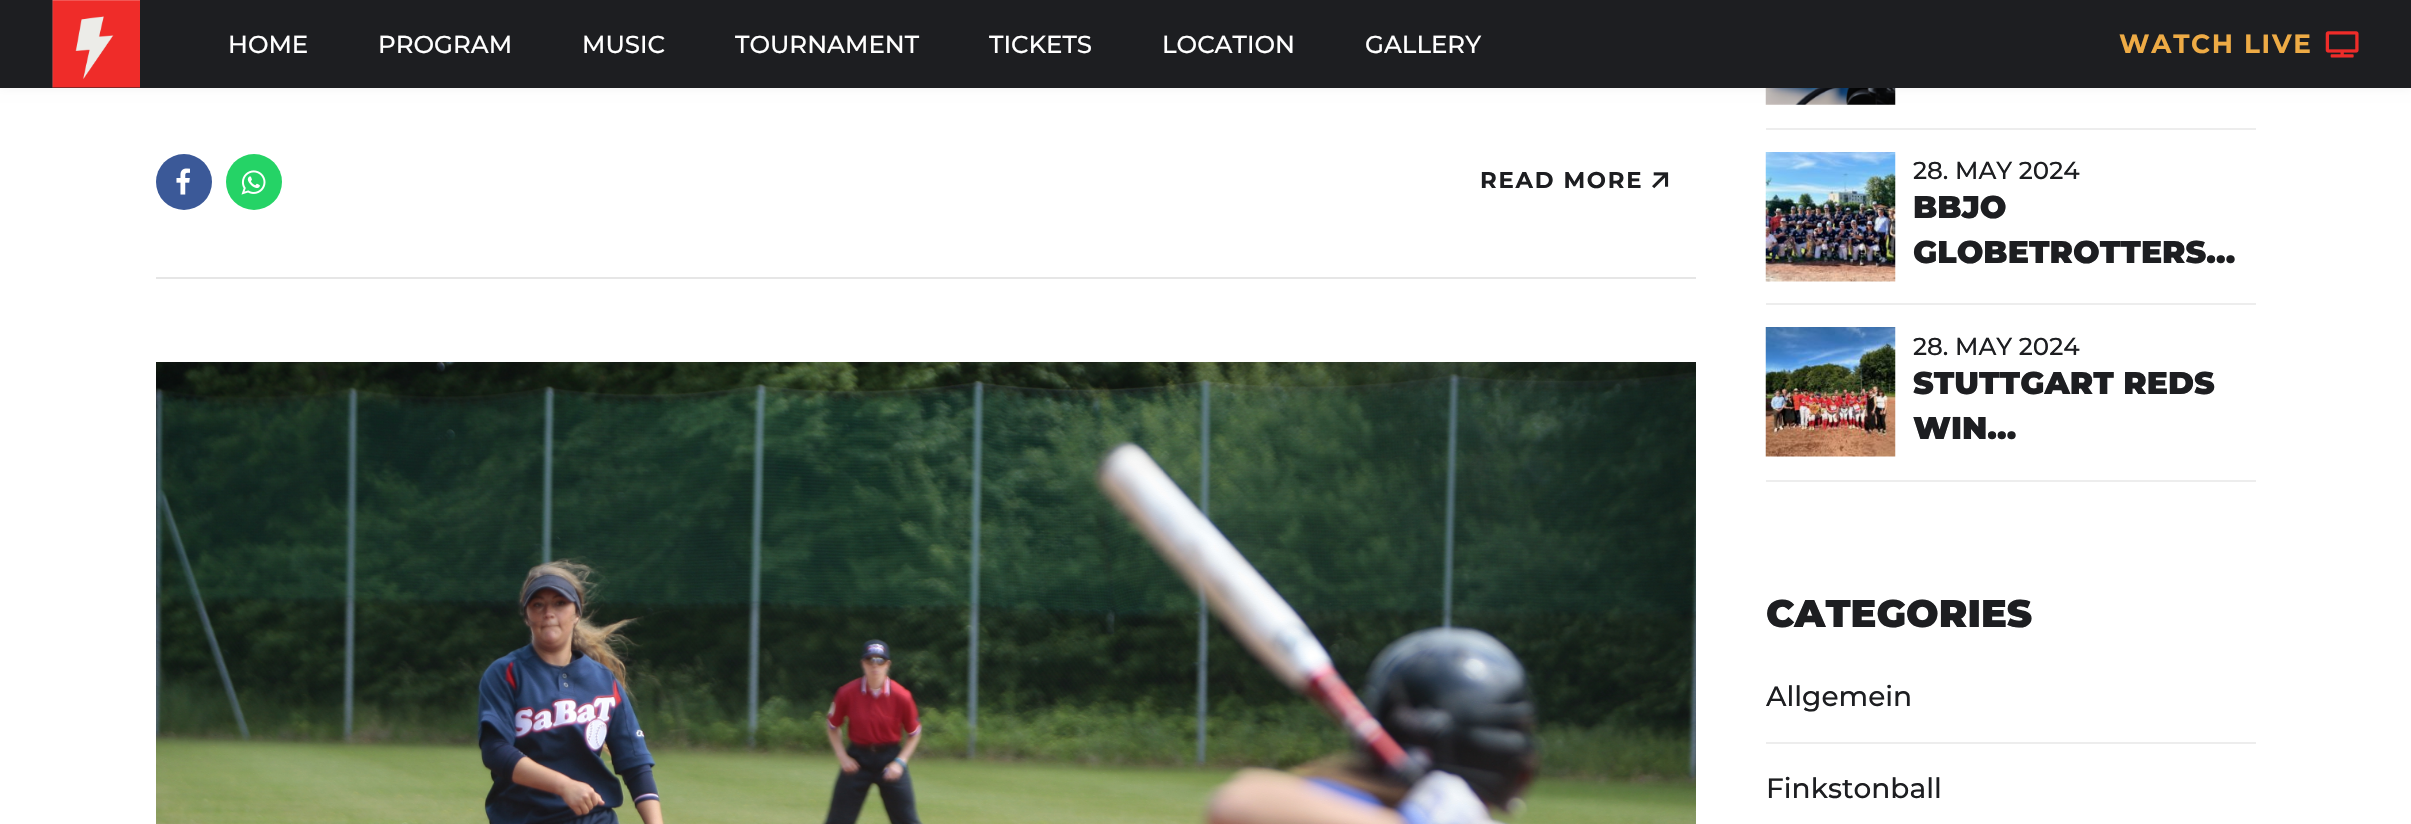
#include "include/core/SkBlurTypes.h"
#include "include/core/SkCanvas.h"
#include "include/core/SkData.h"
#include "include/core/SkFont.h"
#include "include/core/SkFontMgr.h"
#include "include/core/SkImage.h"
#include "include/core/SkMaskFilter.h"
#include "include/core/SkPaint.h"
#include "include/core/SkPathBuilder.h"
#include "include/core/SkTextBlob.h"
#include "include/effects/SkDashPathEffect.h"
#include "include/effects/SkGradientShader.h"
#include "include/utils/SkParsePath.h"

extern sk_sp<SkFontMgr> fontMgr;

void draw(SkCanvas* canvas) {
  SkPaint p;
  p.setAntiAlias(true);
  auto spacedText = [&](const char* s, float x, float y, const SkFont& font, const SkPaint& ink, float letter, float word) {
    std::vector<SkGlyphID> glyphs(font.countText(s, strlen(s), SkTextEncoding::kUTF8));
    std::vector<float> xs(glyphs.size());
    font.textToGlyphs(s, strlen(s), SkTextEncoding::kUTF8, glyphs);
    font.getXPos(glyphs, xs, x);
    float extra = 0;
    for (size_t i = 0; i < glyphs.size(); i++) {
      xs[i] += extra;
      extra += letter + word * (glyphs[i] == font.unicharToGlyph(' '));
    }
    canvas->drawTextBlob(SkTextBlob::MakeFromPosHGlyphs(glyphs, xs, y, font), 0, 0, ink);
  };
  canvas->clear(SK_ColorWHITE);
  canvas->drawImageRect(SkImages::DeferredFromEncodedData(SkData::MakeFromFileName("images/7.png")), SkRect::MakeLTRB(1765, 88, 1896, 105), SkSamplingOptions());
  p.setColor(SkColorSetARGB(13, 0, 0, 0));
  p.setMaskFilter(SkMaskFilter::MakeBlur(kNormal_SkBlurStyle, 5));
  canvas->drawRect(SkRect::MakeLTRB(0, 0, 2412, 88), p);
  p.setMaskFilter(nullptr);
  p.setColor(SkColorSetRGB(29, 30, 33));
  canvas->drawRect(SkRect::MakeLTRB(0, 0, 2411, 88), p);
  canvas->drawImageRect(SkImages::DeferredFromEncodedData(SkData::MakeFromFileName("images/1.png")), SkRect::MakeLTRB(52, 0, 140, 88), SkSamplingOptions());
  canvas->drawImageRect(SkImages::DeferredFromEncodedData(SkData::MakeFromFileName("images/2.png")), SkRect::MakeLTRB(2325, 31, 2359, 58), SkSamplingOptions());
  p.setColor(SkColorSetRGB(230, 230, 230));
  canvas->drawRect(SkRect::MakeLTRB(156, 277, 1696, 279), p);
  p.setColor(SkColorSetRGB(59, 89, 152));
  canvas->drawCircle(184, 182, 28, p);
  canvas->drawImageRect(SkImages::DeferredFromEncodedData(SkData::MakeFromFileName("images/3.png")), SkRect::MakeLTRB(176, 168, 190, 195), SkSamplingOptions());
  p.setColor(SkColorSetRGB(37, 211, 102));
  canvas->drawCircle(254, 182, 28, p);
  canvas->drawImageRect(SkImages::DeferredFromEncodedData(SkData::MakeFromFileName("images/4.png")), SkRect::MakeLTRB(241, 170, 266, 195), SkSamplingOptions());
  canvas->drawImageRect(SkImages::DeferredFromEncodedData(SkData::MakeFromFileName("images/5.png")), SkRect::MakeLTRB(1652, 172, 1669, 189), SkSamplingOptions());
  canvas->drawImageRect(SkImages::DeferredFromEncodedData(SkData::MakeFromFileName("images/6.png")), SkRect::MakeLTRB(156, 362, 1696, 824), SkSamplingOptions());
  p.setColor(SkColorSetRGB(237, 237, 237));
  canvas->drawRect(SkRect::MakeLTRB(1766, 128, 2256, 130), p);
  canvas->drawRect(SkRect::MakeLTRB(1766, 303, 2256, 305), p);
  canvas->drawImageRect(SkImages::DeferredFromEncodedData(SkData::MakeFromFileName("images/8.png")), SkRect::MakeLTRB(1765, 152, 1896, 282), SkSamplingOptions());
  canvas->drawRect(SkRect::MakeLTRB(1766, 480, 2256, 482), p);
  canvas->drawImageRect(SkImages::DeferredFromEncodedData(SkData::MakeFromFileName("images/9.png")), SkRect::MakeLTRB(1765, 327, 1896, 457), SkSamplingOptions());
  canvas->drawRect(SkRect::MakeLTRB(1766, 742, 2256, 744), p);
  SkFont font1(fontMgr->matchFamilyStyle("Montserrat", SkFontStyle(500, SkFontStyle::kNormal_Width, SkFontStyle::kUpright_Slant)), 24.5f);
  font1.setSubpixel(true);
  p.setColor(SK_ColorWHITE);
  canvas->drawString("HOME", 228, 53, font1, p);
  canvas->drawString("PROGRAM", 378, 53, font1, p);
  canvas->drawString("MUSIC", 582, 53, font1, p);
  canvas->drawString("TOURNAMENT", 735, 53, font1, p);
  canvas->drawString("TICKETS", 989, 53, font1, p);
  canvas->drawString("LOCATION", 1162, 53, font1, p);
  canvas->drawString("GALLERY", 1365, 53, font1, p);
  SkFont font2(fontMgr->matchFamilyStyle("Montserrat", SkFontStyle::Bold()), 26.25f);
  font2.setSubpixel(true);
  p.setColor(SkColorSetRGB(238, 171, 69));
  spacedText("WATCH LIVE", 2119, 53, font2, p, 1.75f, 0);
  SkFont font3(fontMgr->matchFamilyStyle("Montserrat", SkFontStyle::Bold()), 22.75f);
  font3.setSubpixel(true);
  p.setColor(SkColorSetRGB(29, 30, 33));
  spacedText("READ MORE", 1480, 188, font3, p, 1.75f, 0);
  canvas->drawString("28. MAY 2024", 1913, 179, font1, p);
  SkFont font4(fontMgr->matchFamilyStyle("Montserrat", SkFontStyle(900, SkFontStyle::kNormal_Width, SkFontStyle::kUpright_Slant)), 31.5f);
  font4.setSubpixel(true);
  canvas->drawString("BBJO", 1913, 218, font4, p);
  canvas->drawString("GLOBETROTTERS…", 1913, 263, font4, p);
  canvas->drawString("28. MAY 2024", 1913, 355, font1, p);
  canvas->drawString("STUTTGART REDS", 1913, 394, font4, p);
  canvas->drawString("WIN…", 1913, 439, font4, p);
  SkFont font5(fontMgr->matchFamilyStyle("Montserrat", SkFontStyle(900, SkFontStyle::kNormal_Width, SkFontStyle::kUpright_Slant)), 38.5f);
  font5.setSubpixel(true);
  canvas->drawString("CATEGORIES", 1766, 627, font5, p);
  SkFont font6(fontMgr->matchFamilyStyle("Montserrat", SkFontStyle(500, SkFontStyle::kNormal_Width, SkFontStyle::kUpright_Slant)), 28);
  font6.setSubpixel(true);
  canvas->drawString("Allgemein", 1766, 706, font6, p);
  canvas->drawString("Finkstonball", 1766, 798, font6, p);
}
